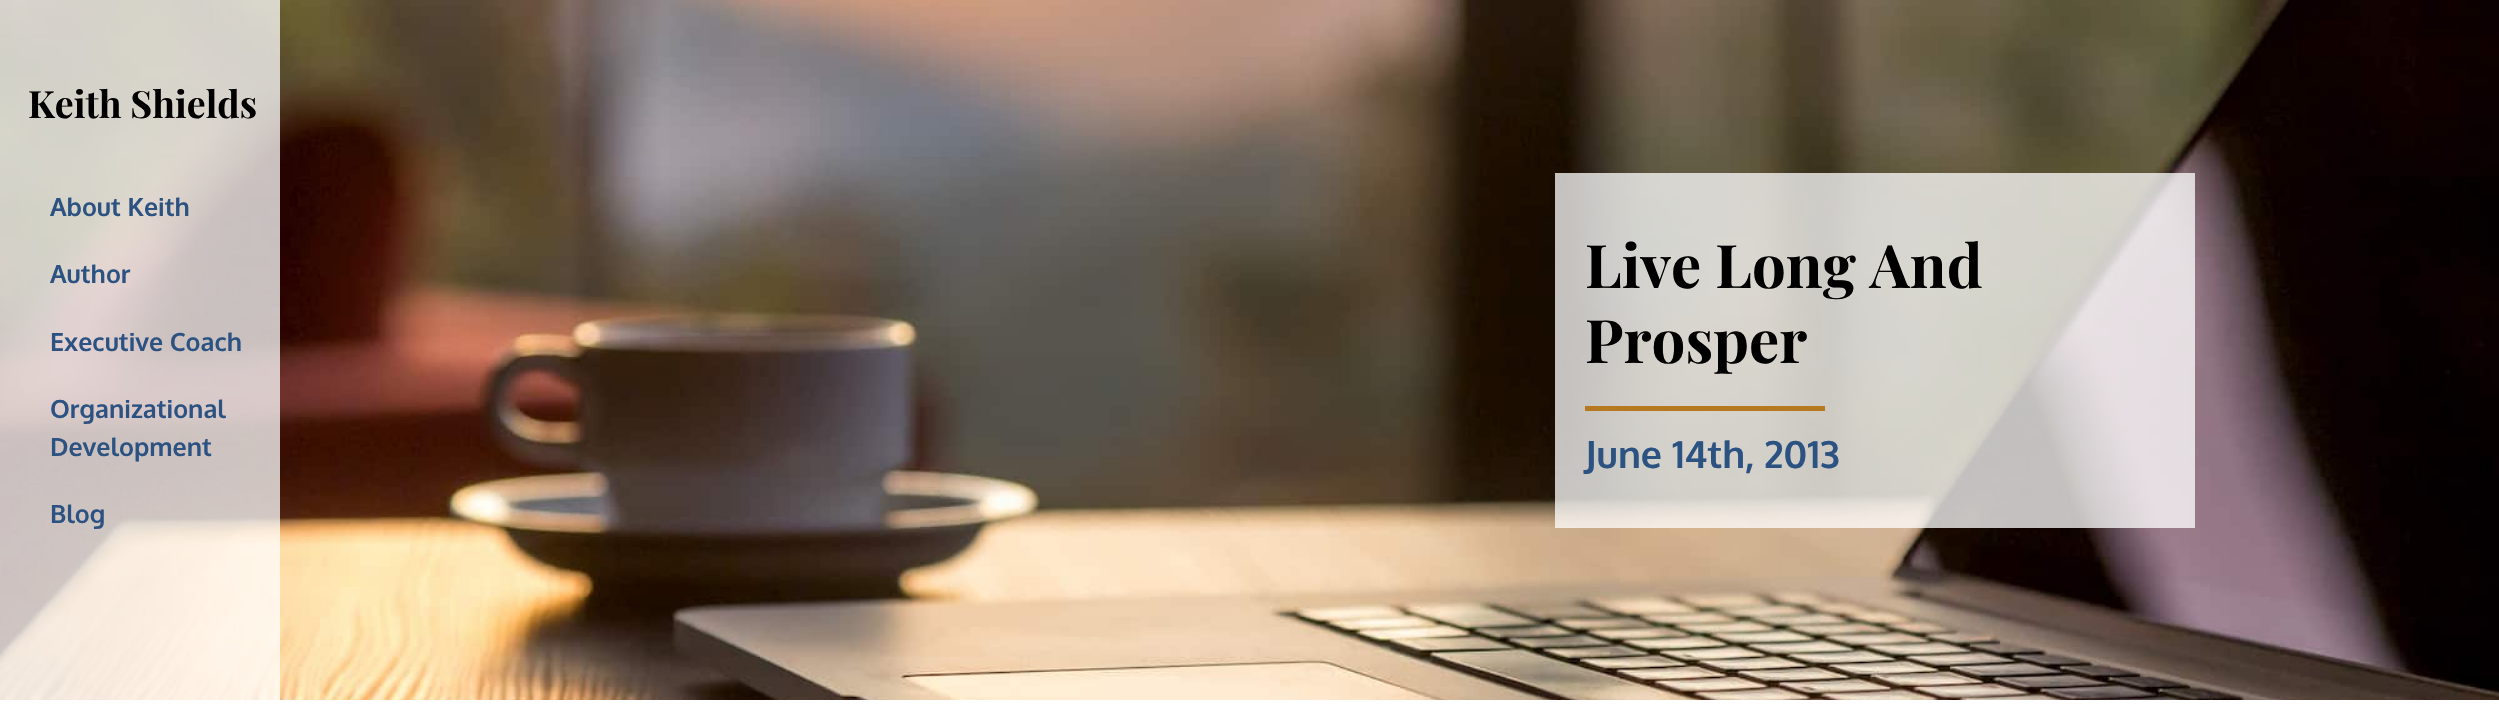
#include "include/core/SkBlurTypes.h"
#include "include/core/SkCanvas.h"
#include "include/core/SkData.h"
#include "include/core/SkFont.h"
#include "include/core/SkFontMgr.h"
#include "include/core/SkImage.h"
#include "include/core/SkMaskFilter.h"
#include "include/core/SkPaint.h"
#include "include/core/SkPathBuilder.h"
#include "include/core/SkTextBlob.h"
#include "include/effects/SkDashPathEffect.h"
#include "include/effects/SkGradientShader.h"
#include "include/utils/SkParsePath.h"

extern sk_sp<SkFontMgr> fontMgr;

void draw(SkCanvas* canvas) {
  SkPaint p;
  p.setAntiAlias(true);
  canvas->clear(SK_ColorWHITE);
  canvas->drawImageRect(SkImages::DeferredFromEncodedData(SkData::MakeFromFileName("images/1.png")), SkRect::MakeLTRB(0, 0, 2499, 700), SkSamplingOptions());
  p.setColor(SkColorSetARGB(191, 255, 255, 255));
  canvas->drawRect(SkRect::MakeLTRB(0, 0, 280, 700), p);
  canvas->drawRect(SkRect::MakeLTRB(1555, 173, 2195, 528), p);
  p.setColor(SkColorSetRGB(183, 121, 31));
  canvas->drawRect(SkRect::MakeLTRB(1585, 406, 1825, 411), p);
  SkFont font1(fontMgr->matchFamilyStyle("Playfair Display", SkFontStyle::Bold()), 37.5f);
  font1.setSubpixel(true);
  p.setColor(SK_ColorBLACK);
  canvas->drawString("Keith Shields", 28, 118, font1, p);
  SkFont font2(fontMgr->matchFamilyStyle("Oxygen", SkFontStyle::Bold()), 25);
  font2.setSubpixel(true);
  p.setColor(SkColorSetRGB(44, 82, 130));
  canvas->drawString("About Keith", 50, 216, font2, p);
  canvas->drawString("Author", 50, 283, font2, p);
  canvas->drawString("Executive Coach", 50, 351, font2, p);
  canvas->drawString("Organizational", 50, 418, font2, p);
  canvas->drawString("Development", 50, 456, font2, p);
  canvas->drawString("Blog", 50, 523, font2, p);
  SkFont font3(fontMgr->matchFamilyStyle("Playfair Display", SkFontStyle::Bold()), 60);
  font3.setSubpixel(true);
  p.setColor(SK_ColorBLACK);
  canvas->drawString("Live Long And", 1585, 288, font3, p);
  canvas->drawString("Prosper", 1585, 363, font3, p);
  SkFont font4(fontMgr->matchFamilyStyle("Oxygen", SkFontStyle::Bold()), 37.5f);
  font4.setSubpixel(true);
  p.setColor(SkColorSetRGB(44, 82, 130));
  canvas->drawString("June 14th, 2013", 1585, 468, font4, p);
}
